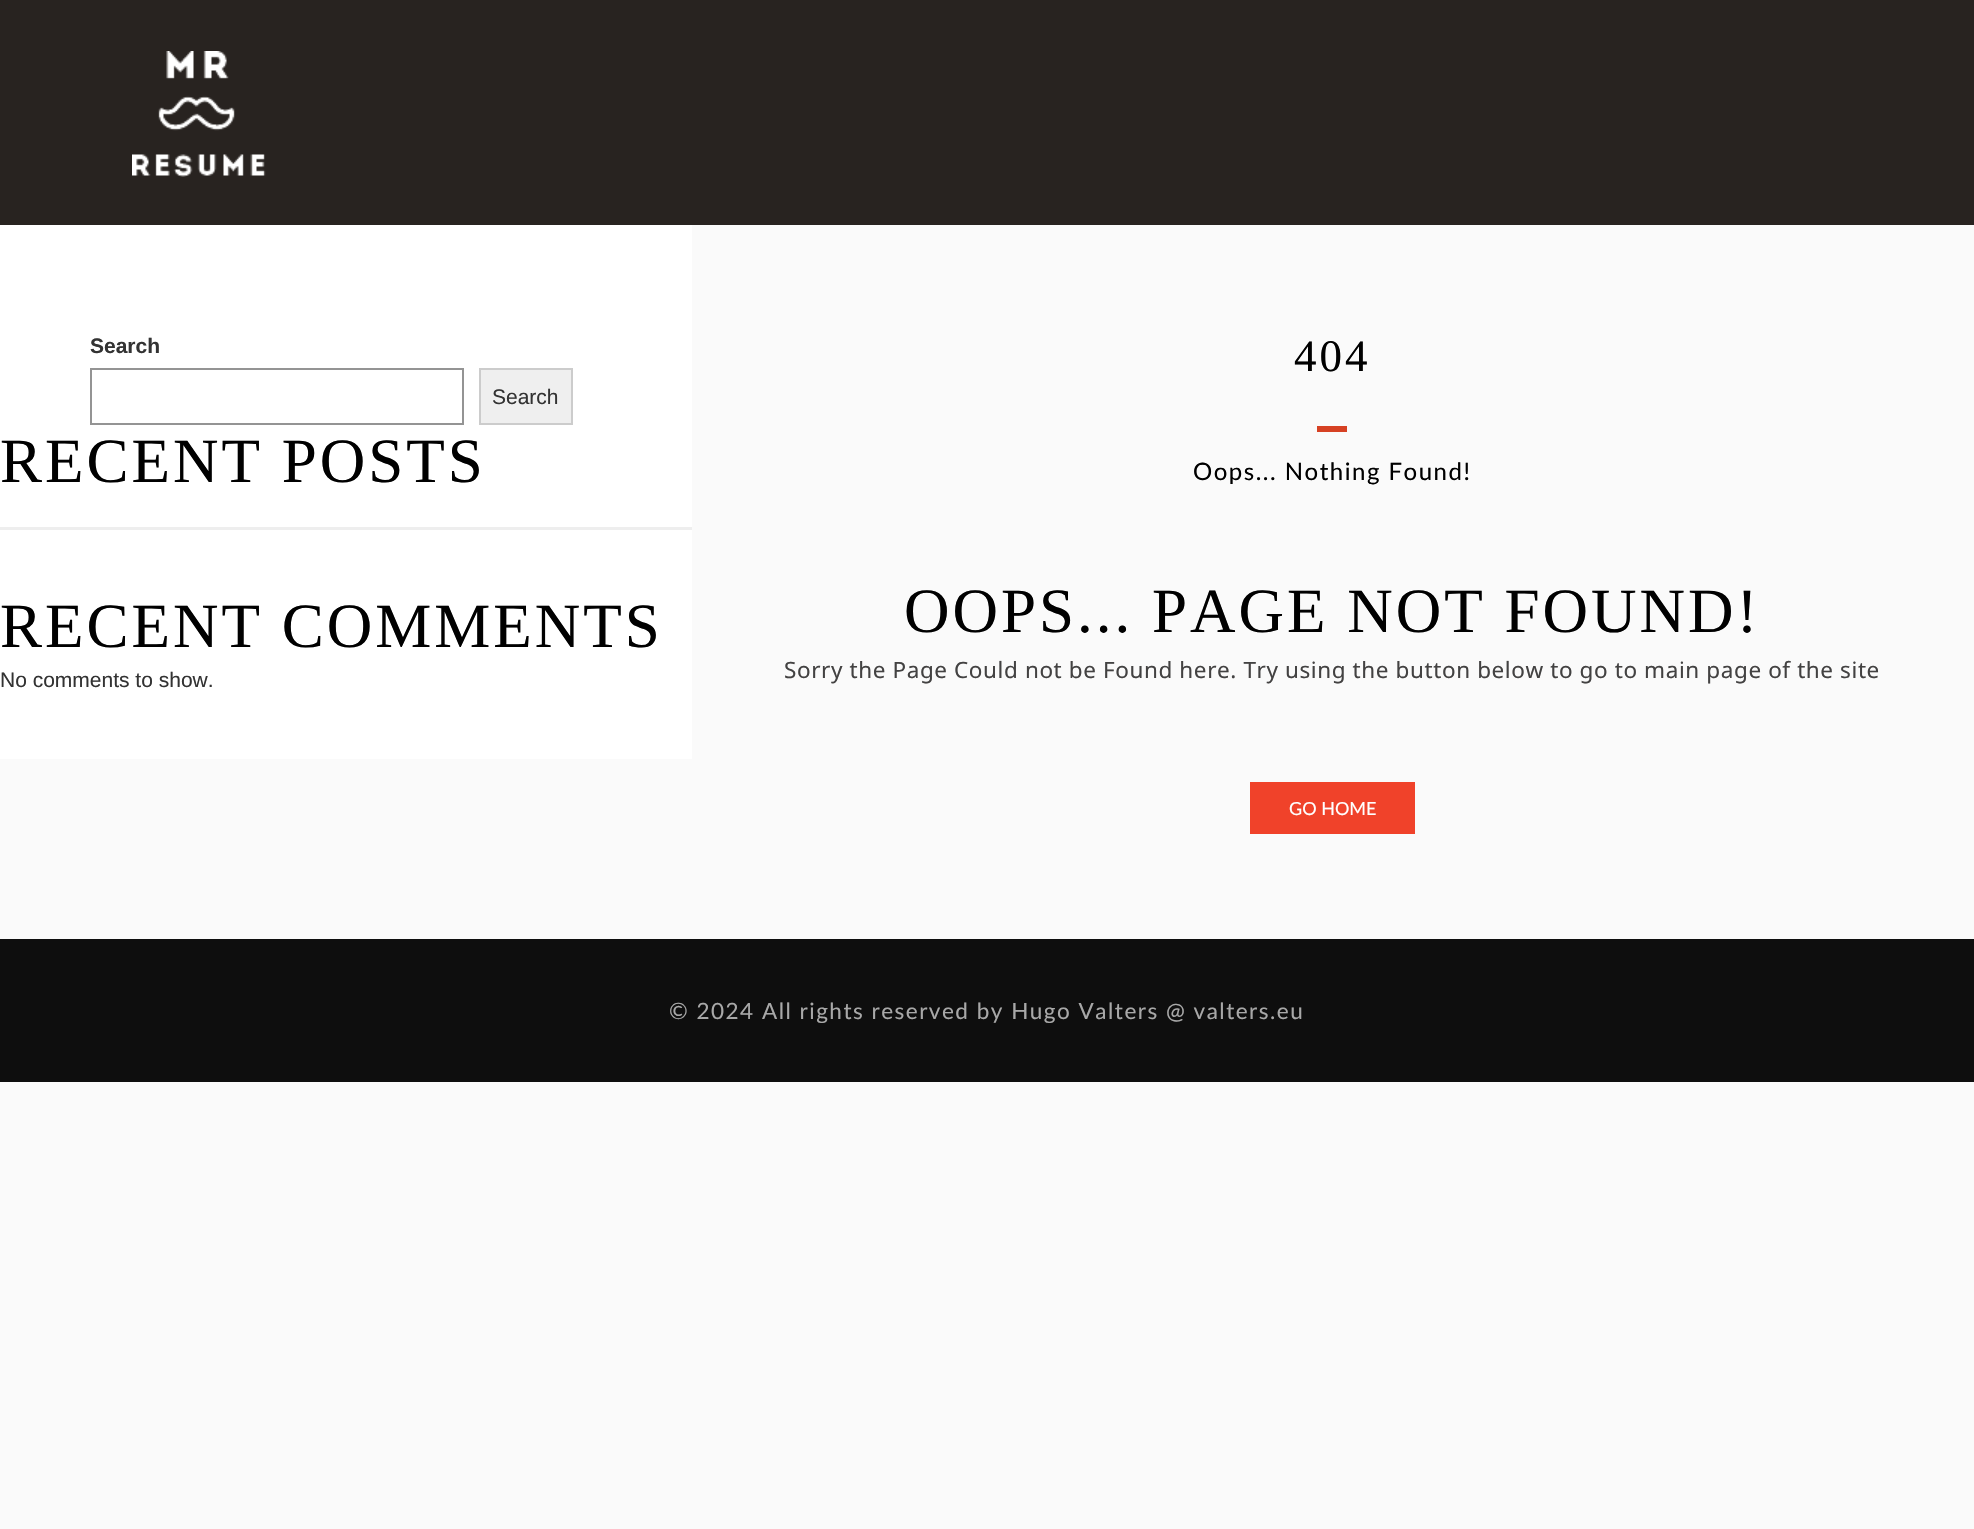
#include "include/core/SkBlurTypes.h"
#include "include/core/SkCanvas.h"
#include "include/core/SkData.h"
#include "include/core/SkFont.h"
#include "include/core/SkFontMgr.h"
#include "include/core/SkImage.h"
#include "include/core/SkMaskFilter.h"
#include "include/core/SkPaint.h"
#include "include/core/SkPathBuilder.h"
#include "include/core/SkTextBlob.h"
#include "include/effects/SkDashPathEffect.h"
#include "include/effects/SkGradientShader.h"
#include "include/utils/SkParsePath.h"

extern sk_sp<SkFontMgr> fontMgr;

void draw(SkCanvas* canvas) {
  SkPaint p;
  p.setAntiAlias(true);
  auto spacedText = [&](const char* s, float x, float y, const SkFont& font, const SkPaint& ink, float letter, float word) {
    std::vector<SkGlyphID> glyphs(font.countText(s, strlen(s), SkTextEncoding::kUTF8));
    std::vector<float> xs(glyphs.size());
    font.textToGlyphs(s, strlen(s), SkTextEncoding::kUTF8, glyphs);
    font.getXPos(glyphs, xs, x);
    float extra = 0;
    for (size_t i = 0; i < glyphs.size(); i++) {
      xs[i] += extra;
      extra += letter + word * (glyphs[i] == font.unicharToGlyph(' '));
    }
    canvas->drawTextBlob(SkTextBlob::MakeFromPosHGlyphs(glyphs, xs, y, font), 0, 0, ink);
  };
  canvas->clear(SkColorSetRGB(250, 250, 250));
  p.setColor(SkColorSetRGB(40, 35, 32));
  canvas->drawRect(SkRect::MakeLTRB(0, 0, 1974, 225), p);
  canvas->drawImageRect(SkImages::DeferredFromEncodedData(SkData::MakeFromFileName("images/1.png")), SkRect::MakeLTRB(132, 51, 266, 177), SkSamplingOptions());
  p.setColor(SK_ColorWHITE);
  canvas->drawRect(SkRect::MakeLTRB(0, 225, 692, 759), p);
  p.setStyle(SkPaint::kStroke_Style);
  p.setStrokeWidth(2);
  p.setColor(SkColorSetRGB(148, 148, 148));
  canvas->drawRect(SkRect::MakeLTRB(91, 369, 463, 424), p);
  p.setStyle(SkPaint::kFill_Style);
  p.setColor(SkColorSetRGB(239, 239, 239));
  canvas->drawRect(SkRect::MakeLTRB(480, 369, 572, 424), p);
  p.setStyle(SkPaint::kStroke_Style);
  p.setColor(SkColorSetRGB(204, 204, 204));
  canvas->drawRect(SkRect::MakeLTRB(480, 369, 572, 424), p);
  p.setStyle(SkPaint::kFill_Style);
  p.setColor(SkColorSetRGB(238, 238, 238));
  canvas->drawRect(SkRect::MakeLTRB(0, 527, 692, 530), p);
  p.setColor(SkColorSetRGB(214, 65, 35));
  canvas->drawRect(SkRect::MakeLTRB(1317, 426, 1347, 432), p);
  p.setColor(SkColorSetRGB(240, 66, 42));
  canvas->drawRect(SkRect::MakeLTRB(1250, 782, 1415, 834), p);
  p.setColor(SkColorSetRGB(14, 14, 14));
  canvas->drawRect(SkRect::MakeLTRB(0, 939, 1974, 1082), p);
  SkFont font1(fontMgr->matchFamilyStyle("Liberation Sans", SkFontStyle::Bold()), 21);
  font1.setSubpixel(true);
  p.setColor(SkColorSetRGB(51, 51, 51));
  canvas->drawString("Search", 90, 353, font1, p);
  SkFont font2(fontMgr->matchFamilyStyle("Liberation Sans", SkFontStyle::Normal()), 21);
  font2.setSubpixel(true);
  canvas->drawString("Search", 492, 404, font2, p);
  SkFont font3(fontMgr->matchFamilyStyle("Liberation Serif", SkFontStyle::Normal()), 63);
  font3.setSubpixel(true);
  p.setColor(SK_ColorBLACK);
  spacedText("RECENT POSTS", 0, 482, font3, p, 3, 0);
  spacedText("RECENT COMMENTS", 0, 647, font3, p, 3, 0);
  p.setColor(SkColorSetRGB(51, 51, 51));
  canvas->drawString("No comments to show.", 0, 687, font2, p);
  SkFont font4(fontMgr->matchFamilyStyle("Liberation Serif", SkFontStyle::Normal()), 45);
  font4.setSubpixel(true);
  p.setColor(SK_ColorBLACK);
  spacedText("404", 1294, 371, font4, p, 3, 0);
  SkFont font5(fontMgr->matchFamilyStyle("Lato", SkFontStyle::Normal()), 24);
  font5.setSubpixel(true);
  spacedText("Oops... Nothing Found!", 1193, 480, font5, p, 1.5f, 0);
  spacedText("OOPS... PAGE NOT FOUND!", 904, 632, font3, p, 3, 0);
  SkFont font6(fontMgr->matchFamilyStyle("Noto Sans", SkFontStyle::Normal()), 22.5f);
  font6.setSubpixel(true);
  p.setColor(SkColorSetRGB(67, 66, 66));
  spacedText("Sorry the Page Could not be Found here. Try using the button below to go to main page of the site", 784, 678, font6, p, 0.6f, 0);
  SkFont font7(fontMgr->matchFamilyStyle("Lato", SkFontStyle::Normal()), 18);
  font7.setSubpixel(true);
  p.setColor(SK_ColorWHITE);
  canvas->drawString("GO HOME", 1289, 815, font7, p);
  SkFont font8(fontMgr->matchFamilyStyle("Lato", SkFontStyle::Normal()), 22.5f);
  font8.setSubpixel(true);
  p.setColor(SkColorSetRGB(168, 168, 168));
  spacedText("© 2024 All rights reserved by Hugo Valters @ valters.eu", 669, 1019, font8, p, 1.5f, 0);
}
